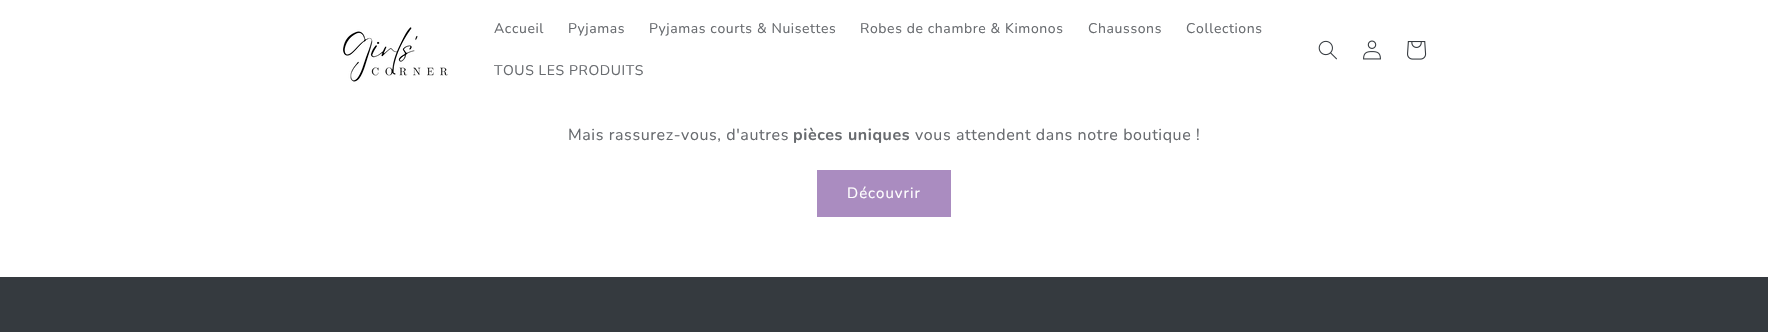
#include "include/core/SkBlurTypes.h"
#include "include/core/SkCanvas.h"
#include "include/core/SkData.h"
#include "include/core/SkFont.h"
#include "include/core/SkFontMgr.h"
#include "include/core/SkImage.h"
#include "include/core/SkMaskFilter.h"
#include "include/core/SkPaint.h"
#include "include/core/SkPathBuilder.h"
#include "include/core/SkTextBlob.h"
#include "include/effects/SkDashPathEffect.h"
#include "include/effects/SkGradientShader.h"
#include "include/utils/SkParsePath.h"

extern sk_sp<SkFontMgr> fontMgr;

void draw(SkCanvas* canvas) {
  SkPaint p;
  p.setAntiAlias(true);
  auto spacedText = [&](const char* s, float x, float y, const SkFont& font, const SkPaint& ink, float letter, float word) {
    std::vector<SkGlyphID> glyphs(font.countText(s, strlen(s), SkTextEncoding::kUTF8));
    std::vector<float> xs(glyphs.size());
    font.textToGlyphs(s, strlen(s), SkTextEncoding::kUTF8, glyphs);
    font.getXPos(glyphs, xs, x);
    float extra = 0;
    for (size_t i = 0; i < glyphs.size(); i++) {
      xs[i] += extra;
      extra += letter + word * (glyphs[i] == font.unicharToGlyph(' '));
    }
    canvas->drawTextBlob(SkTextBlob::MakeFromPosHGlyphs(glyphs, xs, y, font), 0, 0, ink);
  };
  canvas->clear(SK_ColorWHITE);
  canvas->drawImageRect(SkImages::DeferredFromEncodedData(SkData::MakeFromFileName("images/1.png")), SkRect::MakeLTRB(343, 27, 448, 82), SkSamplingOptions());
  canvas->drawImageRect(SkImages::DeferredFromEncodedData(SkData::MakeFromFileName("images/2.png")), SkRect::MakeLTRB(1318, 40, 1337, 60), SkSamplingOptions());
  canvas->drawImageRect(SkImages::DeferredFromEncodedData(SkData::MakeFromFileName("images/3.png")), SkRect::MakeLTRB(1363, 40, 1381, 60), SkSamplingOptions());
  canvas->drawImageRect(SkImages::DeferredFromEncodedData(SkData::MakeFromFileName("images/4.png")), SkRect::MakeLTRB(1407, 41, 1427, 60), SkSamplingOptions());
  p.setColor(SkColorSetRGB(170, 140, 192));
  canvas->drawRect(SkRect::MakeLTRB(817, 170, 951, 217), p);
  p.setColor(SkColorSetRGB(53, 58, 63));
  canvas->drawRect(SkRect::MakeLTRB(0, 277, 1768, 332), p);
  SkFont font1(fontMgr->matchFamilyStyle("Nunito", SkFontStyle::Normal()), 14);
  font1.setSubpixel(true);
  p.setColor(SkColorSetRGB(104, 107, 111));
  spacedText("Accueil", 494, 33, font1, p, 0.6f, 0);
  spacedText("Pyjamas", 568, 33, font1, p, 0.6f, 0);
  spacedText("Pyjamas courts & Nuisettes", 649, 33, font1, p, 0.6f, 0);
  spacedText("Robes de chambre & Kimonos", 860, 33, font1, p, 0.6f, 0);
  spacedText("Chaussons", 1088, 33, font1, p, 0.6f, 0);
  spacedText("Collections", 1186, 33, font1, p, 0.6f, 0);
  spacedText("TOUS LES PRODUITS", 494, 75, font1, p, 0.6f, 0);
  SkFont font2(fontMgr->matchFamilyStyle("Nunito", SkFontStyle::Normal()), 16);
  font2.setSubpixel(true);
  spacedText("Mais rassurez-vous, d'autres", 568, 140, font2, p, 0.6f, 0);
  SkFont font3(fontMgr->matchFamilyStyle("Nunito", SkFontStyle::Bold()), 16);
  font3.setSubpixel(true);
  spacedText("pièces uniques", 793, 140, font3, p, 0.6f, 0);
  spacedText("vous attendent dans notre boutique !", 915, 140, font2, p, 0.6f, 0);
  SkFont font4(fontMgr->matchFamilyStyle("Nunito", SkFontStyle::Normal()), 15);
  font4.setSubpixel(true);
  p.setColor(SK_ColorWHITE);
  spacedText("Découvrir", 847, 198, font4, p, 1, 0);
}
